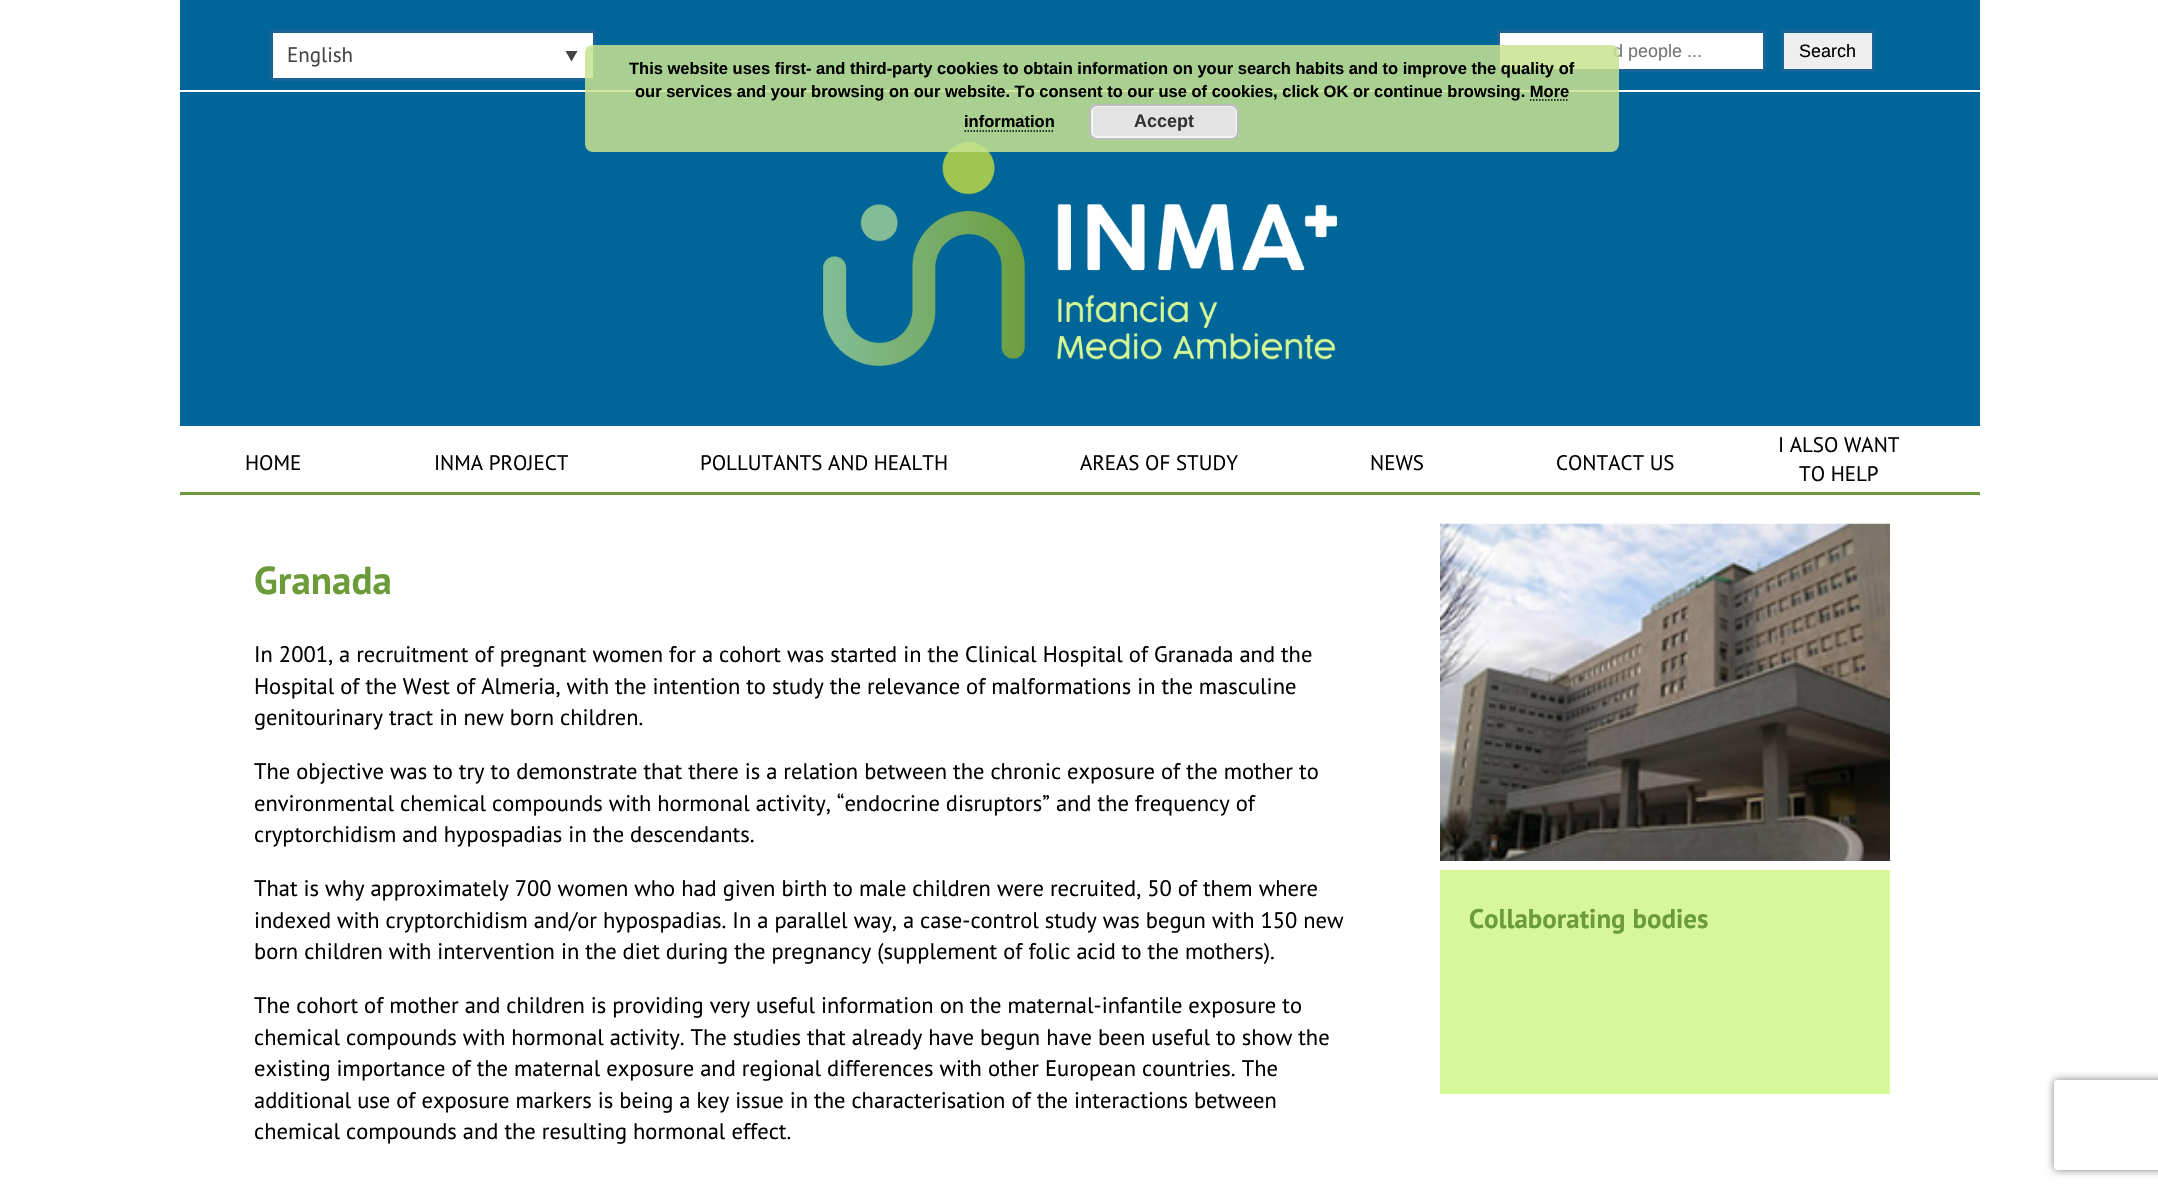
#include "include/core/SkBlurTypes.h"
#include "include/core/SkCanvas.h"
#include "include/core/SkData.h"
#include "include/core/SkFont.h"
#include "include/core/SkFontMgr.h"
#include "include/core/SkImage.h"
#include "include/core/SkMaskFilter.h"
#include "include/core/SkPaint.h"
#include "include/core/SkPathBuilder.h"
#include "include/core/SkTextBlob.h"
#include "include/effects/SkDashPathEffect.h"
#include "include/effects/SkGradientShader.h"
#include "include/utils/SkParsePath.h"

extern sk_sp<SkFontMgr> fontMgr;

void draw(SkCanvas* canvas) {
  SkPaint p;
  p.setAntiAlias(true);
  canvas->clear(SK_ColorWHITE);
  canvas->drawImageRect(SkImages::DeferredFromEncodedData(SkData::MakeFromFileName("images/1.png")), SkRect::MakeLTRB(180, 0, 1980, 426), SkSamplingOptions());
  p.setColor(SK_ColorWHITE);
  canvas->drawRect(SkRect::MakeLTRB(180, 90, 1980, 92), p);
  canvas->drawRect(SkRect::MakeLTRB(271.5f, 31.5f, 594.5f, 79.5f), p);
  p.setStyle(SkPaint::kStroke_Style);
  p.setStrokeWidth(3);
  p.setColor(SkColorSetRGB(26, 100, 153));
  canvas->drawRect(SkRect::MakeLTRB(271.5f, 31.5f, 594.5f, 79.5f), p);
  p.setStyle(SkPaint::kFill_Style);
  p.setColor(SkColorSetRGB(68, 68, 68));
  canvas->drawPath(SkPathBuilder().moveTo(565.5f, 51).lineTo(577.5f, 51).lineTo(571.5f, 61.5f).close().detach(), p);
  p.setColor(SK_ColorWHITE);
  canvas->drawRect(SkRect::MakeLTRB(1498.5f, 31.5f, 1764.5f, 70.5f), p);
  p.setStyle(SkPaint::kStroke_Style);
  p.setColor(SkColorSetRGB(26, 100, 153));
  canvas->drawRect(SkRect::MakeLTRB(1498.5f, 31.5f, 1764.5f, 70.5f), p);
  p.setStyle(SkPaint::kFill_Style);
  p.setColor(SkColorSetRGB(239, 239, 239));
  canvas->drawRect(SkRect::MakeLTRB(1782.5f, 31.5f, 1873.5f, 70.5f), p);
  p.setStyle(SkPaint::kStroke_Style);
  p.setColor(SkColorSetRGB(26, 100, 153));
  canvas->drawRect(SkRect::MakeLTRB(1782.5f, 31.5f, 1873.5f, 70.5f), p);
  p.setStyle(SkPaint::kFill_Style);
  p.setColor(SkColorSetRGB(108, 155, 57));
  canvas->drawRect(SkRect::MakeLTRB(180, 492, 1980, 495), p);
  canvas->drawImageRect(SkImages::DeferredFromEncodedData(SkData::MakeFromFileName("images/2.png")), SkRect::MakeLTRB(1440, 523, 1890, 861), SkSamplingOptions());
  p.setColor(SkColorSetRGB(215, 248, 152));
  canvas->drawRect(SkRect::MakeLTRB(1440, 870, 1890, 1094), p);
  canvas->save();
  canvas->clipPath(SkPathBuilder(SkPathFillType::kEvenOdd).moveTo(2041, 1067).lineTo(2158, 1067).lineTo(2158, 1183).lineTo(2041, 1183).close().moveTo(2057, 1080).lineTo(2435, 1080).cubicTo(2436.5f, 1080, 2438, 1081.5f, 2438, 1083).lineTo(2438, 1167).cubicTo(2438, 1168.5f, 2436.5f, 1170, 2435, 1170).lineTo(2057, 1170).cubicTo(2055.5f, 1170, 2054, 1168.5f, 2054, 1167).lineTo(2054, 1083).cubicTo(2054, 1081.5f, 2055.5f, 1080, 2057, 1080).close().detach(), true);
  p.setColor(SkColorSetRGB(128, 128, 128));
  p.setMaskFilter(SkMaskFilter::MakeBlur(kNormal_SkBlurStyle, 4));
  canvas->drawRoundRect(SkRect::MakeLTRB(2054, 1080, 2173, 1170), 3, 3, p);
  p.setMaskFilter(nullptr);
  canvas->restore();
  SkFont font1(fontMgr->matchFamilyStyle("PT Sans", SkFontStyle::Normal()), 21);
  font1.setSubpixel(true);
  p.setColor(SkColorSetRGB(68, 68, 68));
  canvas->drawString("English", 287, 62, font1, p);
  SkFont font2(fontMgr->matchFamilyStyle("Liberation Sans", SkFontStyle::Normal()), 18);
  font2.setSubpixel(true);
  p.setColor(SkColorSetRGB(117, 117, 117));
  canvas->drawString("d people ...", 1613, 57, font2, p);
  p.setColor(SK_ColorBLACK);
  canvas->drawString("Search", 1799, 57, font2, p);
  canvas->drawString("HOME", 245, 470, font1, p);
  canvas->drawString("INMA PROJECT", 434, 470, font1, p);
  canvas->drawString("POLLUTANTS AND HEALTH", 700, 470, font1, p);
  canvas->drawString("AREAS OF STUDY", 1080, 470, font1, p);
  canvas->drawString("NEWS", 1370, 470, font1, p);
  canvas->drawString("CONTACT US", 1556, 470, font1, p);
  canvas->drawString("I ALSO WANT", 1778, 452, font1, p);
  canvas->drawString("TO HELP", 1799, 481, font1, p);
  SkFont font3(fontMgr->matchFamilyStyle("PT Sans", SkFontStyle::Bold()), 39);
  font3.setSubpixel(true);
  p.setColor(SkColorSetRGB(108, 155, 57));
  canvas->drawString("Granada", 254, 594, font3, p);
  SkFont font4(fontMgr->matchFamilyStyle("PT Sans", SkFontStyle::Normal()), 22.5f);
  font4.setSubpixel(true);
  p.setColor(SK_ColorBLACK);
  canvas->drawString("In 2001, a recruitment of pregnant women for a cohort was started in the Clinical Hospital of Granada and the", 254, 662, font4, p);
  canvas->drawString("Hospital of the West of Almeria, with the intention to study the relevance of malformations in the masculine", 254, 694, font4, p);
  canvas->drawString("genitourinary tract in new born children.", 254, 725, font4, p);
  canvas->drawString("The objective was to try to demonstrate that there is a relation between the chronic exposure of the mother to", 254, 779, font4, p);
  canvas->drawString("environmental chemical compounds with hormonal activity, “endocrine disruptors” and the frequency of", 254, 811, font4, p);
  canvas->drawString("cryptorchidism and hypospadias in the descendants.", 254, 842, font4, p);
  canvas->drawString("That is why approximately 700 women who had given birth to male children were recruited, 50 of them where", 254, 896, font4, p);
  canvas->drawString("indexed with cryptorchidism and/or hypospadias. In a parallel way, a case-control study was begun with 150 new", 254, 928, font4, p);
  canvas->drawString("born children with intervention in the diet during the pregnancy (supplement of folic acid to the mothers).", 254, 959, font4, p);
  canvas->drawString("The cohort of mother and children is providing very useful information on the maternal-infantile exposure to", 254, 1013, font4, p);
  canvas->drawString("chemical compounds with hormonal activity. The studies that already have begun have been useful to show the", 254, 1045, font4, p);
  canvas->drawString("existing importance of the maternal exposure and regional differences with other European countries. The", 254, 1076, font4, p);
  canvas->drawString("additional use of exposure markers is being a key issue in the characterisation of the interactions between", 254, 1108, font4, p);
  canvas->drawString("chemical compounds and the resulting hormonal effect.", 254, 1139, font4, p);
  SkFont font5(fontMgr->matchFamilyStyle("PT Sans", SkFontStyle::Bold()), 27);
  font5.setSubpixel(true);
  p.setColor(SkColorSetRGB(108, 155, 57));
  canvas->drawString("Collaborating bodies", 1469, 928, font5, p);
  p.setColor(SkColorSetARGB(217, 199, 227, 143));
  canvas->drawRoundRect(SkRect::MakeLTRB(585, 45, 1619, 152), 8, 8, p);
  SkFont font6(fontMgr->matchFamilyStyle("Liberation Sans", SkFontStyle::Bold()), 16.5f);
  font6.setSubpixel(true);
  p.setColor(SK_ColorBLACK);
  canvas->drawString("This website uses first- and third-party cookies to obtain information on your search habits and to improve the quality of", 629, 74, font6, p);
  canvas->drawString("our services and your browsing on our website. To consent to our use of cookies, click OK or continue browsing. More", 635, 97, font6, p);
  canvas->drawString("information", 964, 127, font6, p);
  p.setStyle(SkPaint::kStroke_Style);
  p.setStrokeWidth(1.5f);
  p.setPathEffect(SkDashPathEffect::Make({{1.5f, 1.5f}}, 0));
  canvas->drawPath(SkPathBuilder().moveTo(1530, 100).lineTo(1569, 100).detach(), p);
  p.setPathEffect(nullptr);
  p.setPathEffect(SkDashPathEffect::Make({{1.5f, 1.5f}}, 0));
  canvas->drawPath(SkPathBuilder().moveTo(964.5f, 131).lineTo(1054.5f, 131).detach(), p);
  p.setPathEffect(nullptr);
  p.setStyle(SkPaint::kFill_Style);
  p.setColor(SkColorSetRGB(227, 227, 227));
  canvas->drawRoundRect(SkRect::MakeLTRB(1089, 104, 1239, 140), 8, 8, p);
  p.setStyle(SkPaint::kStroke_Style);
  p.setStrokeWidth(2);
  p.setColor(SkColorSetRGB(246, 246, 246));
  canvas->drawRoundRect(SkRect::MakeLTRB(1092, 106, 1237, 137), 5, 5, p);
  p.setColor(SkColorSetRGB(187, 187, 187));
  canvas->drawRoundRect(SkRect::MakeLTRB(1090, 105, 1238, 139), 7, 7, p);
  SkFont font7(fontMgr->matchFamilyStyle("Liberation Sans", SkFontStyle::Bold()), 18);
  font7.setSubpixel(true);
  p.setStyle(SkPaint::kFill_Style);
  p.setColor(SkColorSetRGB(51, 51, 51));
  canvas->drawString("Accept", 1134, 127, font7, p);
}
